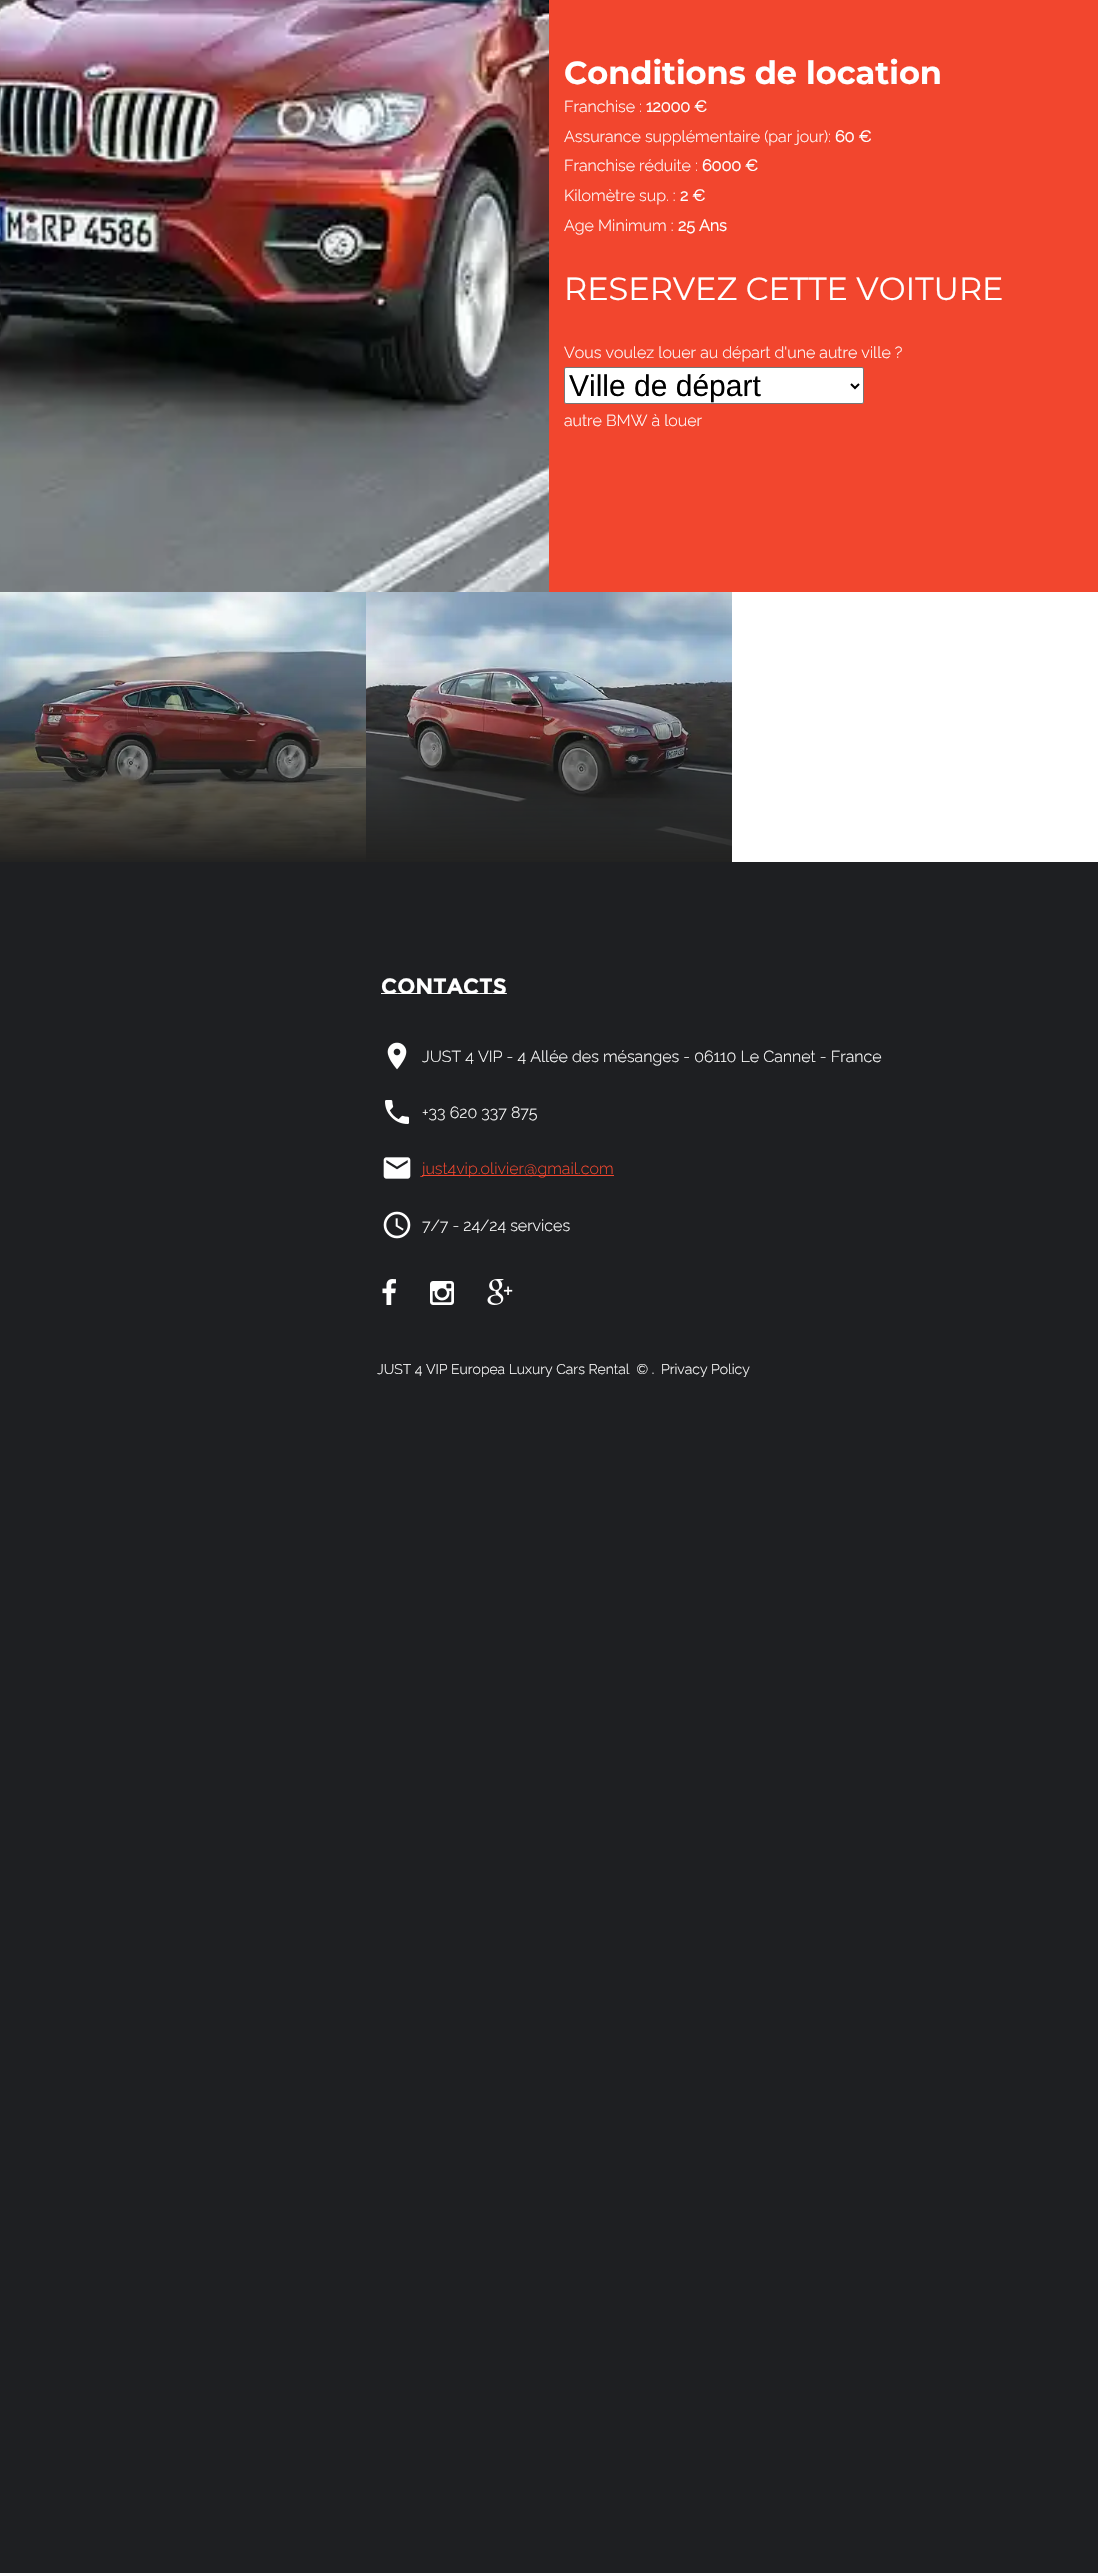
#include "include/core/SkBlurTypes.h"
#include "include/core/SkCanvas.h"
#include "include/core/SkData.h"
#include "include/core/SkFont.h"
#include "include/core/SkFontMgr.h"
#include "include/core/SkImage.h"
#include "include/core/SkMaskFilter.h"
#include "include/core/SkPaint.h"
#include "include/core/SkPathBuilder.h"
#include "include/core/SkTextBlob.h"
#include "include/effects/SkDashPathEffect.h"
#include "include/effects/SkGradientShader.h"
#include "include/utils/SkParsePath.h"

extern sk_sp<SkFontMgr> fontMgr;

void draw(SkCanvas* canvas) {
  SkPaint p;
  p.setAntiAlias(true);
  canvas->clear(SK_ColorWHITE);
  p.setColor(SkColorSetRGB(242, 70, 46));
  canvas->drawRect(SkRect::MakeLTRB(549, 0, 1098, 592), p);
  canvas->drawImageRect(SkImages::DeferredFromEncodedData(SkData::MakeFromFileName("images/1.png")), SkRect::MakeLTRB(0, 0, 549, 592), SkSamplingOptions());
  p.setColor(SK_ColorWHITE);
  canvas->drawRoundRect(SkRect::MakeLTRB(564.5f, 367.5f, 863.5f, 403.5f), 1.5f, 1.5f, p);
  p.setStyle(SkPaint::kStroke_Style);
  p.setStrokeWidth(1);
  p.setColor(SkColorSetRGB(118, 118, 118));
  canvas->drawRoundRect(SkRect::MakeLTRB(564.5f, 367.5f, 863.5f, 403.5f), 1.5f, 1.5f, p);
  p.setStrokeWidth(2);
  p.setColor(SK_ColorBLACK);
  canvas->drawPath(SkPathBuilder().moveTo(851, 384).lineTo(855, 388).lineTo(859, 384).detach(), p);
  canvas->drawImageRect(SkImages::DeferredFromEncodedData(SkData::MakeFromFileName("images/2.png")), SkRect::MakeLTRB(0, 592, 366, 862), SkSamplingOptions());
  canvas->drawImageRect(SkImages::DeferredFromEncodedData(SkData::MakeFromFileName("images/3.png")), SkRect::MakeLTRB(366, 592, 732, 862), SkSamplingOptions());
  p.setStyle(SkPaint::kFill_Style);
  p.setColor(SkColorSetRGB(30, 31, 34));
  canvas->drawRect(SkRect::MakeLTRB(0, 862, 1098, 2573), p);
  canvas->drawImageRect(SkImages::DeferredFromEncodedData(SkData::MakeFromFileName("images/4.png")), SkRect::MakeLTRB(387, 1042, 407, 1070), SkSamplingOptions());
  canvas->drawImageRect(SkImages::DeferredFromEncodedData(SkData::MakeFromFileName("images/5.png")), SkRect::MakeLTRB(385, 1100, 409, 1124), SkSamplingOptions());
  canvas->drawImageRect(SkImages::DeferredFromEncodedData(SkData::MakeFromFileName("images/6.png")), SkRect::MakeLTRB(383, 1157, 411, 1179), SkSamplingOptions());
  p.setColor(SkColorSetRGB(242, 70, 46));
  canvas->drawRect(SkRect::MakeLTRB(422, 1175, 614, 1176), p);
  canvas->drawImageRect(SkImages::DeferredFromEncodedData(SkData::MakeFromFileName("images/7.png")), SkRect::MakeLTRB(383, 1211, 411, 1239), SkSamplingOptions());
  canvas->drawImageRect(SkImages::DeferredFromEncodedData(SkData::MakeFromFileName("images/8.png")), SkRect::MakeLTRB(382, 1279, 396, 1305), SkSamplingOptions());
  canvas->drawImageRect(SkImages::DeferredFromEncodedData(SkData::MakeFromFileName("images/9.png")), SkRect::MakeLTRB(430, 1281, 454, 1305), SkSamplingOptions());
  canvas->drawImageRect(SkImages::DeferredFromEncodedData(SkData::MakeFromFileName("images/10.png")), SkRect::MakeLTRB(487, 1279, 513, 1305), SkSamplingOptions());
  SkFont font1(fontMgr->matchFamilyStyle("Montserrat", SkFontStyle::Bold()), 32);
  font1.setSubpixel(true);
  p.setColor(SK_ColorWHITE);
  canvas->drawString("Conditions de location", 564, 84, font1, p);
  SkFont font2(fontMgr->matchFamilyStyle("Raleway", SkFontStyle(100, SkFontStyle::kNormal_Width, SkFontStyle::kUpright_Slant)), 16);
  font2.setSubpixel(true);
  canvas->drawString("Franchise :", 564, 112, font2, p);
  SkFont font3(fontMgr->matchFamilyStyle("Raleway", SkFontStyle::Bold()), 16);
  font3.setSubpixel(true);
  canvas->drawString("12000 €", 646, 112, font3, p);
  canvas->drawString("Assurance supplémentaire (par jour):", 564, 142, font2, p);
  canvas->drawString("60 €", 835, 142, font3, p);
  canvas->drawString("Franchise réduite :", 564, 171, font2, p);
  canvas->drawString("6000 €", 702, 171, font3, p);
  canvas->drawString("Kilomètre sup. :", 564, 201, font2, p);
  canvas->drawString("2 €", 680, 201, font3, p);
  canvas->drawString("Age Minimum :", 564, 231, font2, p);
  canvas->drawString("25 Ans", 678, 231, font3, p);
  SkFont font4(fontMgr->matchFamilyStyle("Montserrat", SkFontStyle::Normal()), 32);
  font4.setSubpixel(true);
  canvas->drawString("RESERVEZ CETTE VOITURE", 564, 300, font4, p);
  canvas->drawString("Vous voulez louer au départ d'une autre ville ?", 564, 358, font2, p);
  SkFont font5(fontMgr->matchFamilyStyle("Liberation Sans", SkFontStyle::Normal()), 30);
  font5.setSubpixel(true);
  p.setColor(SK_ColorBLACK);
  canvas->drawString("Ville de départ", 569, 396, font5, p);
  p.setColor(SK_ColorWHITE);
  canvas->drawString("autre BMW à louer", 564, 426, font2, p);
  SkFont font6(fontMgr->matchFamilyStyle("Montserrat Subrayada", SkFontStyle::Bold()), 22);
  font6.setSubpixel(true);
  canvas->drawString("Contacts", 381, 994, font6, p);
  canvas->drawString("JUST 4 VIP - 4 Allée des mésanges - 06110 Le Cannet - France", 422, 1062, font2, p);
  canvas->drawString("+33 620 337 875", 422, 1118, font2, p);
  p.setColor(SkColorSetRGB(242, 70, 46));
  canvas->drawString("just4vip.olivier@gmail.com", 422, 1174, font2, p);
  p.setColor(SK_ColorWHITE);
  canvas->drawString("7/7 - 24/24 services", 422, 1231, font2, p);
  SkFont font7(fontMgr->matchFamilyStyle("Raleway", SkFontStyle(100, SkFontStyle::kNormal_Width, SkFontStyle::kUpright_Slant)), 14);
  font7.setSubpixel(true);
  canvas->drawString("JUST 4 VIP Europea Luxury Cars Rental  © .", 377, 1374, font7, p);
  canvas->drawString("Privacy Policy", 661, 1374, font7, p);
}
